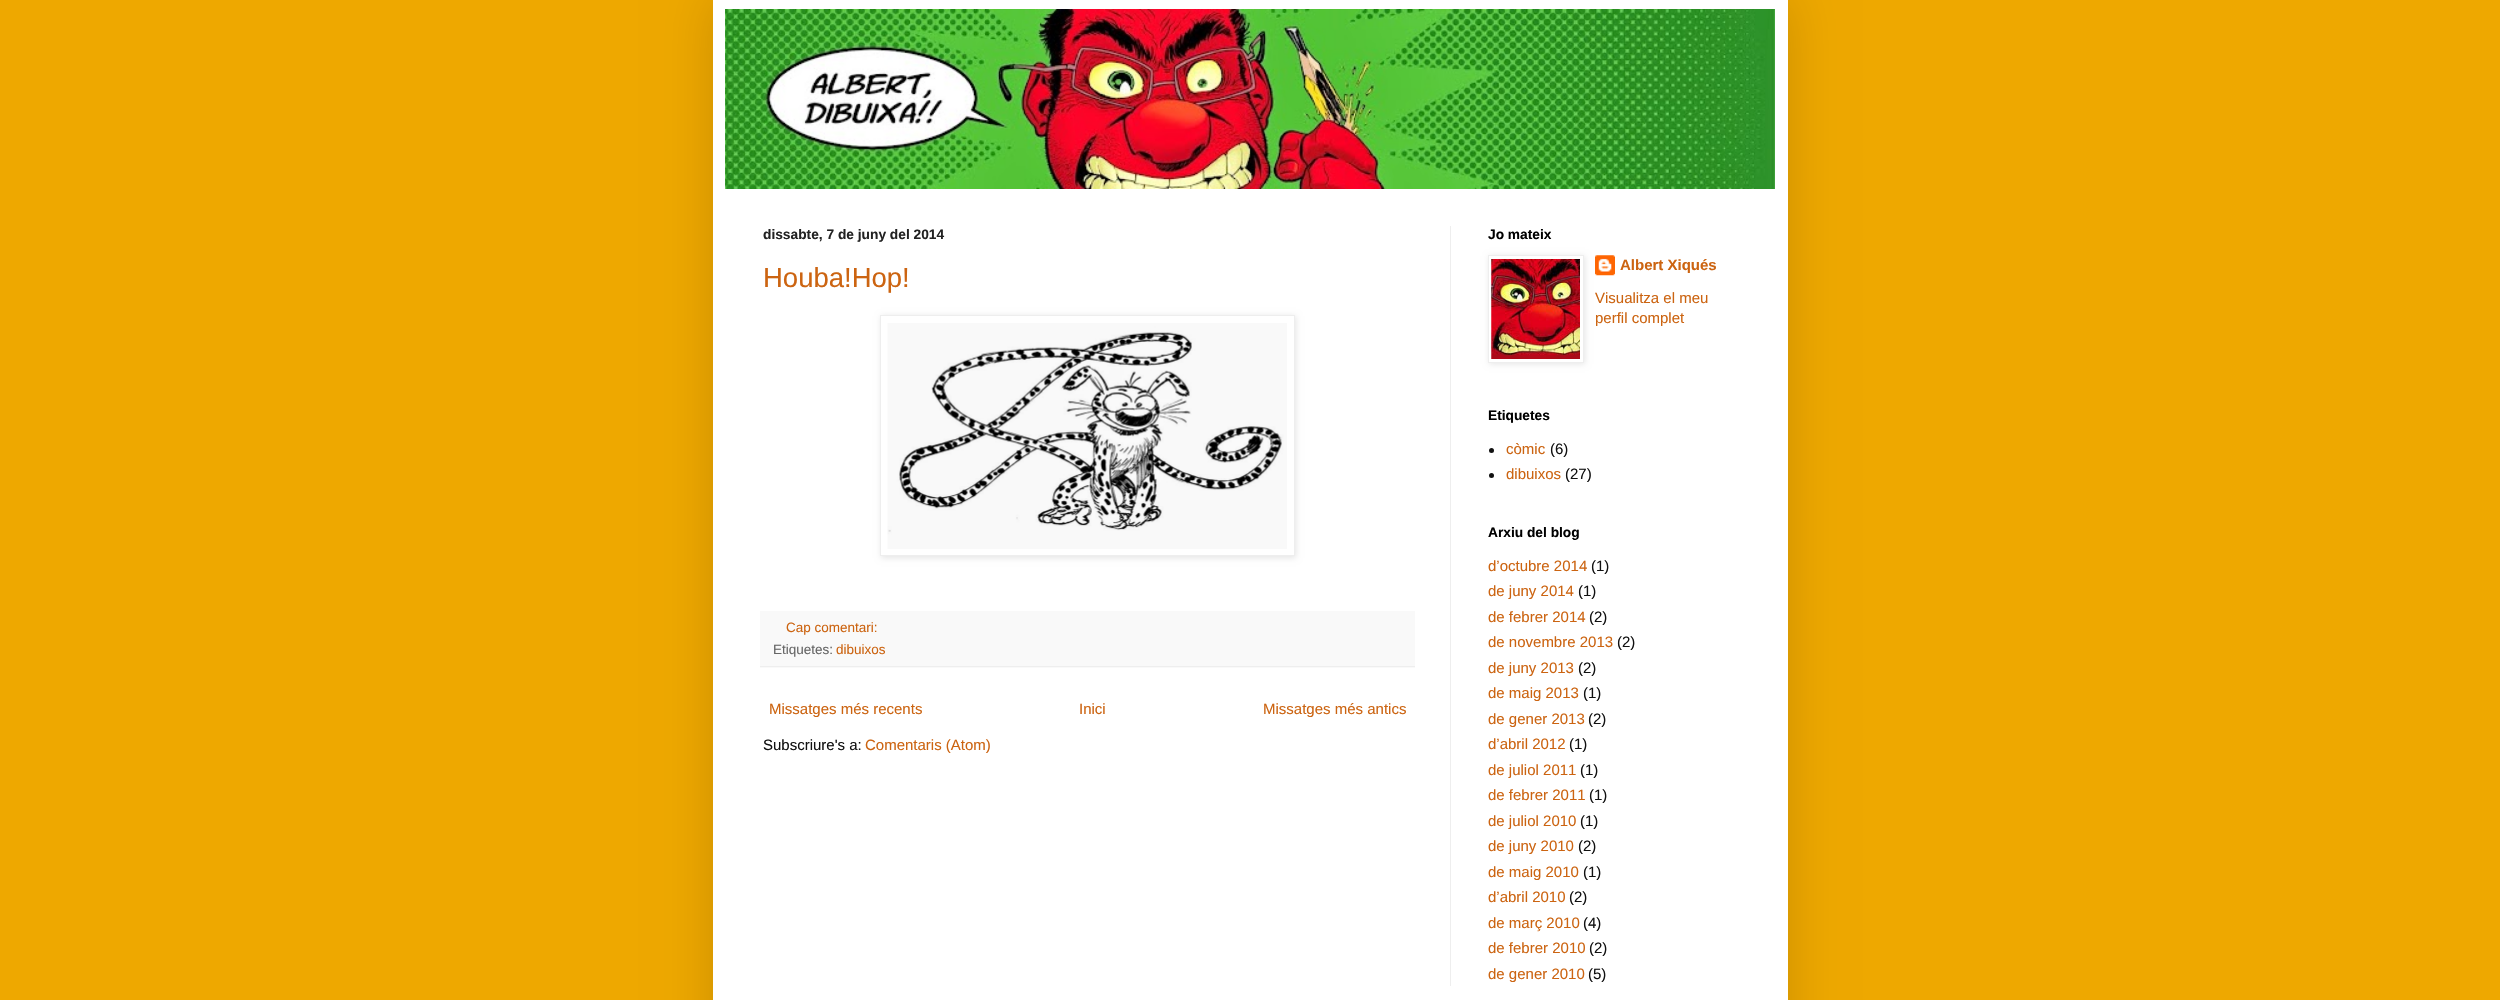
#include "include/core/SkBlurTypes.h"
#include "include/core/SkCanvas.h"
#include "include/core/SkData.h"
#include "include/core/SkFont.h"
#include "include/core/SkFontMgr.h"
#include "include/core/SkImage.h"
#include "include/core/SkMaskFilter.h"
#include "include/core/SkPaint.h"
#include "include/core/SkPathBuilder.h"
#include "include/core/SkTextBlob.h"
#include "include/effects/SkDashPathEffect.h"
#include "include/effects/SkGradientShader.h"
#include "include/utils/SkParsePath.h"

extern sk_sp<SkFontMgr> fontMgr;

void draw(SkCanvas* canvas) {
  SkPaint p;
  p.setAntiAlias(true);
  canvas->clear(SkColorSetRGB(238, 168, 0));
  p.setColor(SkColorSetARGB(38, 0, 0, 0));
  p.setMaskFilter(SkMaskFilter::MakeBlur(kNormal_SkBlurStyle, 25));
  canvas->drawRect(SkRect::MakeLTRB(713, -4, 1788, 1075), p);
  p.setMaskFilter(nullptr);
  p.setColor(SK_ColorWHITE);
  canvas->drawRect(SkRect::MakeLTRB(713, 0, 1788, 1000), p);
  canvas->drawImageRect(SkImages::DeferredFromEncodedData(SkData::MakeFromFileName("images/1.png")), SkRect::MakeLTRB(725, 9, 1775, 189), SkSamplingOptions());
  p.setColor(SkColorSetRGB(238, 238, 238));
  canvas->drawRect(SkRect::MakeLTRB(1450, 226, 1451, 986), p);
  canvas->save();
  canvas->clipPath(SkPathBuilder(SkPathFillType::kEvenOdd).moveTo(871, 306).lineTo(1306, 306).lineTo(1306, 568).lineTo(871, 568).close().moveTo(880, 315).lineTo(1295, 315).lineTo(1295, 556).lineTo(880, 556).close().detach(), true);
  p.setColor(SkColorSetARGB(26, 0, 0, 0));
  p.setMaskFilter(SkMaskFilter::MakeBlur(kNormal_SkBlurStyle, 3));
  canvas->drawRect(SkRect::MakeLTRB(881, 316, 1296, 558), p);
  p.setMaskFilter(nullptr);
  canvas->restore();
  p.setStyle(SkPaint::kStroke_Style);
  p.setStrokeWidth(1);
  p.setColor(SkColorSetRGB(238, 238, 238));
  canvas->drawRect(SkRect::MakeLTRB(880.5f, 315.5f, 1294.5f, 555.5f), p);
  canvas->drawImageRect(SkImages::DeferredFromEncodedData(SkData::MakeFromFileName("images/2.png")), SkRect::MakeLTRB(887, 323, 1287, 549), SkSamplingOptions());
  p.setStyle(SkPaint::kFill_Style);
  p.setColor(SkColorSetRGB(249, 249, 249));
  canvas->drawRect(SkRect::MakeLTRB(760, 611, 1415, 668), p);
  p.setColor(SkColorSetRGB(238, 238, 238));
  canvas->drawRect(SkRect::MakeLTRB(760, 666, 1415, 667), p);
  p.setColor(SkColorSetARGB(26, 0, 0, 0));
  p.setMaskFilter(SkMaskFilter::MakeBlur(kNormal_SkBlurStyle, 3));
  canvas->drawRect(SkRect::MakeLTRB(1489, 256, 1585, 364), p);
  p.setMaskFilter(nullptr);
  p.setColor(SK_ColorWHITE);
  canvas->drawRect(SkRect::MakeLTRB(1488.5f, 255.5f, 1583.5f, 362.5f), p);
  p.setStyle(SkPaint::kStroke_Style);
  p.setColor(SkColorSetRGB(238, 238, 238));
  canvas->drawRect(SkRect::MakeLTRB(1488.5f, 255.5f, 1583.5f, 362.5f), p);
  canvas->drawImageRect(SkImages::DeferredFromEncodedData(SkData::MakeFromFileName("images/3.png")), SkRect::MakeLTRB(1491, 259, 1580, 359), SkSamplingOptions());
  canvas->drawImageRect(SkImages::DeferredFromEncodedData(SkData::MakeFromFileName("images/4.png")), SkRect::MakeLTRB(1595, 255, 1615, 276), SkSamplingOptions());
  p.setStyle(SkPaint::kFill_Style);
  p.setColor(SkColorSetRGB(17, 17, 17));
  canvas->drawCircle(1491.5f, 450.5f, 2.5f, p);
  canvas->drawCircle(1491.5f, 475.5f, 2.5f, p);
  SkFont font1(fontMgr->matchFamilyStyle("Liberation Sans", SkFontStyle::Bold()), 13.75f);
  font1.setSubpixel(true);
  p.setColor(SkColorSetRGB(34, 34, 34));
  canvas->drawString("dissabte, 7 de juny del 2014", 763, 239, font1, p);
  SkFont font2(fontMgr->matchFamilyStyle("Liberation Sans", SkFontStyle::Normal()), 27.5f);
  font2.setSubpixel(true);
  p.setColor(SkColorSetRGB(204, 100, 17));
  canvas->drawString("Houba!Hop!", 763, 287, font2, p);
  SkFont font3(fontMgr->matchFamilyStyle("Liberation Sans", SkFontStyle::Normal()), 13.5f);
  font3.setSubpixel(true);
  canvas->drawString("Cap comentari:", 786, 632, font3, p);
  p.setColor(SkColorSetRGB(102, 102, 102));
  canvas->drawString("Etiquetes:", 773, 654, font3, p);
  p.setColor(SkColorSetRGB(204, 100, 17));
  canvas->drawString("dibuixos", 836, 654, font3, p);
  SkFont font4(fontMgr->matchFamilyStyle("Liberation Sans", SkFontStyle::Normal()), 15);
  font4.setSubpixel(true);
  canvas->drawString("Missatges més recents", 769, 714, font4, p);
  canvas->drawString("Inici", 1079, 714, font4, p);
  canvas->drawString("Missatges més antics", 1263, 714, font4, p);
  p.setColor(SkColorSetRGB(17, 17, 17));
  canvas->drawString("Subscriure's a:", 763, 750, font4, p);
  p.setColor(SkColorSetRGB(204, 100, 17));
  canvas->drawString("Comentaris (Atom)", 865, 750, font4, p);
  p.setColor(SK_ColorBLACK);
  canvas->drawString("Jo mateix", 1488, 239, font1, p);
  SkFont font5(fontMgr->matchFamilyStyle("Liberation Sans", SkFontStyle::Bold()), 15);
  font5.setSubpixel(true);
  p.setColor(SkColorSetRGB(204, 100, 17));
  canvas->drawString("Albert Xiqués", 1620, 270, font5, p);
  canvas->drawString("Visualitza el meu", 1595, 303, font4, p);
  canvas->drawString("perfil complet", 1595, 323, font4, p);
  p.setColor(SK_ColorBLACK);
  canvas->drawString("Etiquetes", 1488, 420, font1, p);
  p.setColor(SkColorSetRGB(204, 100, 17));
  canvas->drawString("còmic", 1506, 454, font4, p);
  p.setColor(SkColorSetRGB(17, 17, 17));
  canvas->drawString("(6)", 1550, 454, font4, p);
  p.setColor(SkColorSetRGB(204, 100, 17));
  canvas->drawString("dibuixos", 1506, 479, font4, p);
  p.setColor(SkColorSetRGB(17, 17, 17));
  canvas->drawString("(27)", 1565, 479, font4, p);
  p.setColor(SK_ColorBLACK);
  canvas->drawString("Arxiu del blog", 1488, 537, font1, p);
  p.setColor(SkColorSetRGB(204, 100, 17));
  canvas->drawString("d’octubre 2014", 1488, 571, font4, p);
  p.setColor(SkColorSetRGB(17, 17, 17));
  canvas->drawString("(1)", 1591, 571, font4, p);
  p.setColor(SkColorSetRGB(204, 100, 17));
  canvas->drawString("de juny 2014", 1488, 596, font4, p);
  p.setColor(SkColorSetRGB(17, 17, 17));
  canvas->drawString("(1)", 1578, 596, font4, p);
  p.setColor(SkColorSetRGB(204, 100, 17));
  canvas->drawString("de febrer 2014", 1488, 622, font4, p);
  p.setColor(SkColorSetRGB(17, 17, 17));
  canvas->drawString("(2)", 1589, 622, font4, p);
  p.setColor(SkColorSetRGB(204, 100, 17));
  canvas->drawString("de novembre 2013", 1488, 647, font4, p);
  p.setColor(SkColorSetRGB(17, 17, 17));
  canvas->drawString("(2)", 1617, 647, font4, p);
  p.setColor(SkColorSetRGB(204, 100, 17));
  canvas->drawString("de juny 2013", 1488, 673, font4, p);
  p.setColor(SkColorSetRGB(17, 17, 17));
  canvas->drawString("(2)", 1578, 673, font4, p);
  p.setColor(SkColorSetRGB(204, 100, 17));
  canvas->drawString("de maig 2013", 1488, 698, font4, p);
  p.setColor(SkColorSetRGB(17, 17, 17));
  canvas->drawString("(1)", 1583, 698, font4, p);
  p.setColor(SkColorSetRGB(204, 100, 17));
  canvas->drawString("de gener 2013", 1488, 724, font4, p);
  p.setColor(SkColorSetRGB(17, 17, 17));
  canvas->drawString("(2)", 1588, 724, font4, p);
  p.setColor(SkColorSetRGB(204, 100, 17));
  canvas->drawString("d’abril 2012", 1488, 749, font4, p);
  p.setColor(SkColorSetRGB(17, 17, 17));
  canvas->drawString("(1)", 1569, 749, font4, p);
  p.setColor(SkColorSetRGB(204, 100, 17));
  canvas->drawString("de juliol 2011", 1488, 775, font4, p);
  p.setColor(SkColorSetRGB(17, 17, 17));
  canvas->drawString("(1)", 1580, 775, font4, p);
  p.setColor(SkColorSetRGB(204, 100, 17));
  canvas->drawString("de febrer 2011", 1488, 800, font4, p);
  p.setColor(SkColorSetRGB(17, 17, 17));
  canvas->drawString("(1)", 1589, 800, font4, p);
  p.setColor(SkColorSetRGB(204, 100, 17));
  canvas->drawString("de juliol 2010", 1488, 826, font4, p);
  p.setColor(SkColorSetRGB(17, 17, 17));
  canvas->drawString("(1)", 1580, 826, font4, p);
  p.setColor(SkColorSetRGB(204, 100, 17));
  canvas->drawString("de juny 2010", 1488, 851, font4, p);
  p.setColor(SkColorSetRGB(17, 17, 17));
  canvas->drawString("(2)", 1578, 851, font4, p);
  p.setColor(SkColorSetRGB(204, 100, 17));
  canvas->drawString("de maig 2010", 1488, 877, font4, p);
  p.setColor(SkColorSetRGB(17, 17, 17));
  canvas->drawString("(1)", 1583, 877, font4, p);
  p.setColor(SkColorSetRGB(204, 100, 17));
  canvas->drawString("d’abril 2010", 1488, 902, font4, p);
  p.setColor(SkColorSetRGB(17, 17, 17));
  canvas->drawString("(2)", 1569, 902, font4, p);
  p.setColor(SkColorSetRGB(204, 100, 17));
  canvas->drawString("de març 2010", 1488, 928, font4, p);
  p.setColor(SkColorSetRGB(17, 17, 17));
  canvas->drawString("(4)", 1583, 928, font4, p);
  p.setColor(SkColorSetRGB(204, 100, 17));
  canvas->drawString("de febrer 2010", 1488, 953, font4, p);
  p.setColor(SkColorSetRGB(17, 17, 17));
  canvas->drawString("(2)", 1589, 953, font4, p);
  p.setColor(SkColorSetRGB(204, 100, 17));
  canvas->drawString("de gener 2010", 1488, 979, font4, p);
  p.setColor(SkColorSetRGB(17, 17, 17));
  canvas->drawString("(5)", 1588, 979, font4, p);
}
